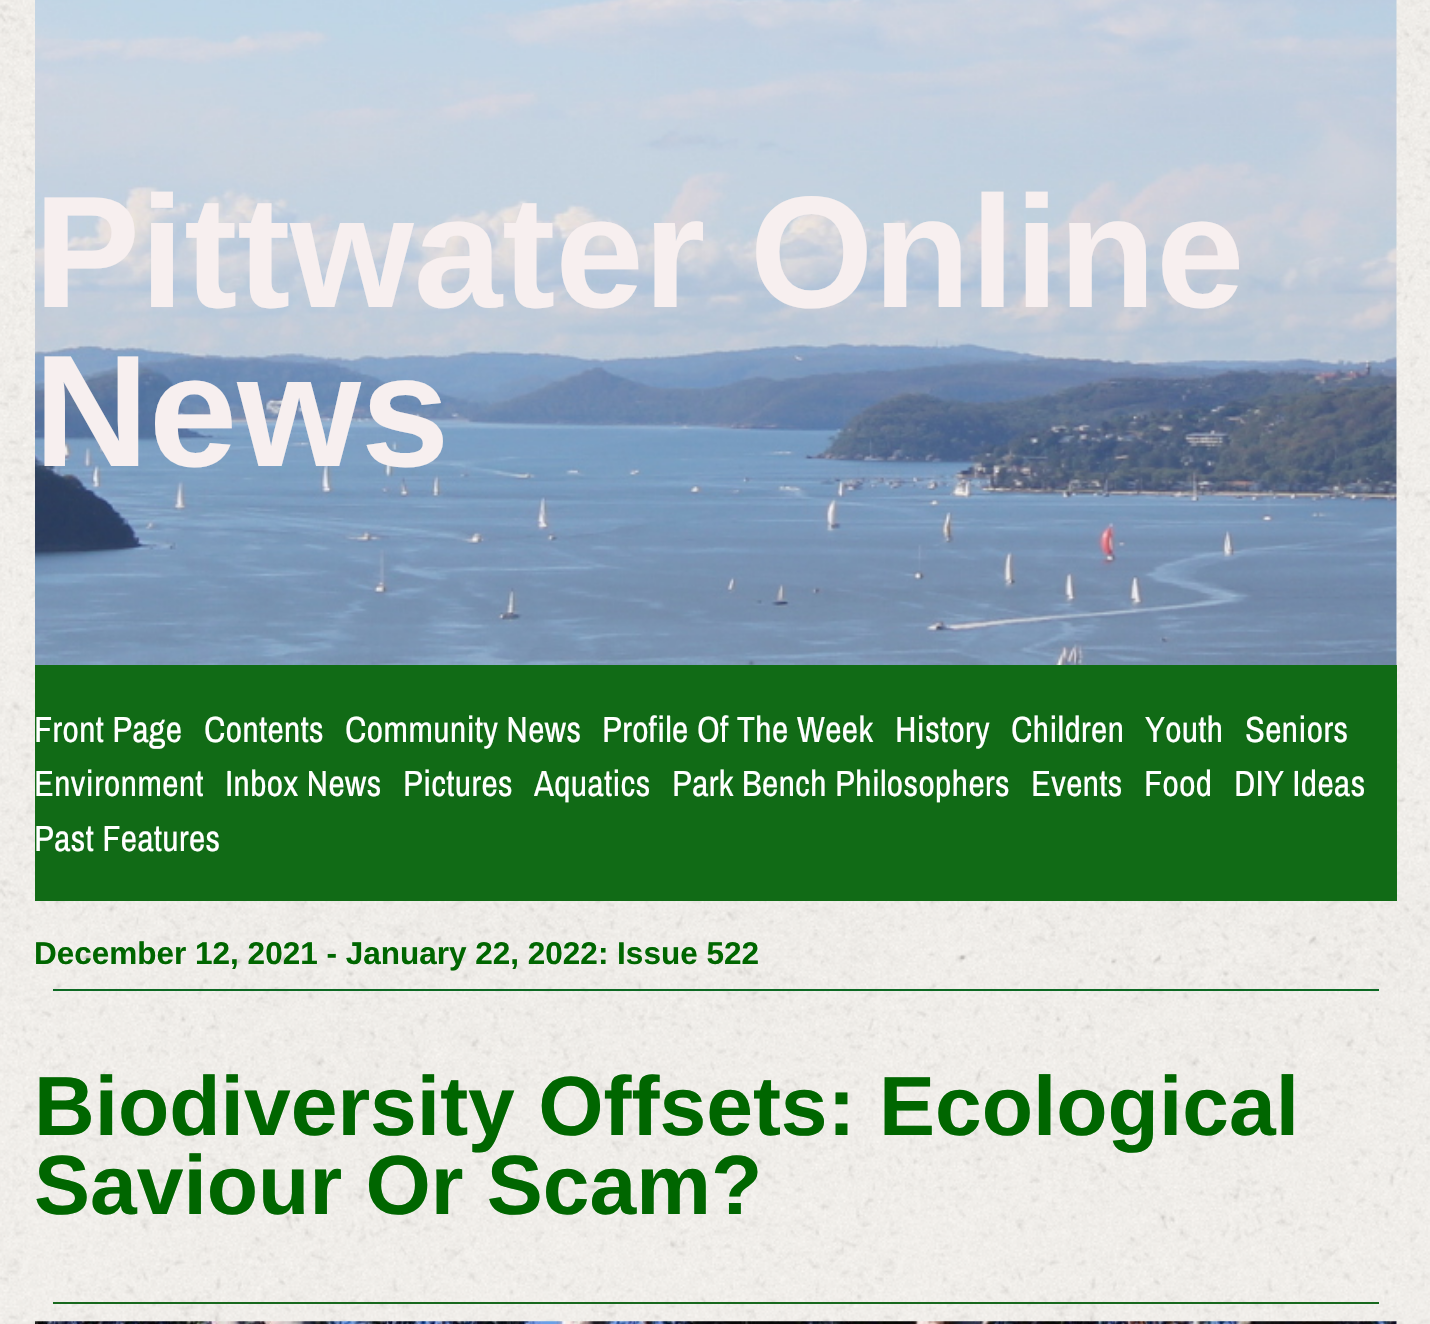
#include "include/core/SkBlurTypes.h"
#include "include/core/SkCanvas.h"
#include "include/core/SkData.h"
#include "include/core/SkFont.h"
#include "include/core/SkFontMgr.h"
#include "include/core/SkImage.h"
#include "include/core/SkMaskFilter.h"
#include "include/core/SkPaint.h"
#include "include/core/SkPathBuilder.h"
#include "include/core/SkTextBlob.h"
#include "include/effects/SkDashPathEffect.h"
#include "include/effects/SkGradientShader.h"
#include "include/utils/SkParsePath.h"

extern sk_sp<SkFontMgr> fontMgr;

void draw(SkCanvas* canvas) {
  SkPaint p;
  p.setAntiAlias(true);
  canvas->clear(SK_ColorWHITE);
  canvas->drawImageRect(SkImages::DeferredFromEncodedData(SkData::MakeFromFileName("images/1.png")), SkRect::MakeLTRB(0, 0, 1430, 1324), SkSamplingOptions());
  canvas->drawImageRect(SkImages::DeferredFromEncodedData(SkData::MakeFromFileName("images/2.png")), SkRect::MakeLTRB(35, 0, 1397, 665), SkSamplingOptions());
  p.setColor(SkColorSetRGB(17, 107, 22));
  canvas->drawRect(SkRect::MakeLTRB(35, 665, 1397, 901), p);
  p.setColor(SkColorSetRGB(12, 105, 35));
  canvas->drawRect(SkRect::MakeLTRB(53, 989, 1379, 991), p);
  p.setColor(SkColorSetRGB(24, 104, 29));
  canvas->drawRect(SkRect::MakeLTRB(53, 1302, 1379, 1304), p);
  canvas->drawImageRect(SkImages::DeferredFromEncodedData(SkData::MakeFromFileName("images/3.png")), SkRect::MakeLTRB(35, 1321, 1397, 1324), SkSamplingOptions());
  SkFont font1(fontMgr->matchFamilyStyle("Liberation Sans", SkFontStyle::Bold()), 159);
  font1.setSubpixel(true);
  p.setColor(SkColorSetRGB(247, 239, 239));
  canvas->drawString("Pittwater Online", 34, 307, font1, p);
  canvas->drawString("News", 34, 466, font1, p);
  SkFont font2(fontMgr->matchFamilyStyle("Archivo Narrow", SkFontStyle::Normal()), 36.5f);
  font2.setSubpixel(true);
  p.setColor(SK_ColorWHITE);
  canvas->drawString("Front Page", 34, 742, font2, p);
  canvas->drawString("Contents", 204, 742, font2, p);
  canvas->drawString("Community News", 345, 742, font2, p);
  canvas->drawString("Profile Of The Week", 602, 742, font2, p);
  canvas->drawString("History", 895, 742, font2, p);
  canvas->drawString("Children", 1011, 742, font2, p);
  canvas->drawString("Youth", 1145, 742, font2, p);
  canvas->drawString("Seniors", 1245, 742, font2, p);
  canvas->drawString("Environment", 34, 796, font2, p);
  canvas->drawString("Inbox News", 225, 796, font2, p);
  canvas->drawString("Pictures", 403, 796, font2, p);
  canvas->drawString("Aquatics", 534, 796, font2, p);
  canvas->drawString("Park Bench Philosophers", 672, 796, font2, p);
  canvas->drawString("Events", 1031, 796, font2, p);
  canvas->drawString("Food", 1144, 796, font2, p);
  canvas->drawString("DIY Ideas", 1234, 796, font2, p);
  canvas->drawString("Past Features", 34, 851, font2, p);
  SkFont font3(fontMgr->matchFamilyStyle("Liberation Sans", SkFontStyle::Bold()), 31.5f);
  font3.setSubpixel(true);
  p.setColor(SkColorSetRGB(0, 102, 0));
  canvas->drawString("December 12, 2021 - January 22, 2022: Issue 522", 34, 964, font3, p);
  SkFont font4(fontMgr->matchFamilyStyle("Liberation Sans", SkFontStyle::Bold()), 84);
  font4.setSubpixel(true);
  canvas->drawString("Biodiversity Offsets: Ecological", 34, 1135, font4, p);
  canvas->drawString("Saviour Or Scam?", 34, 1214, font4, p);
}
